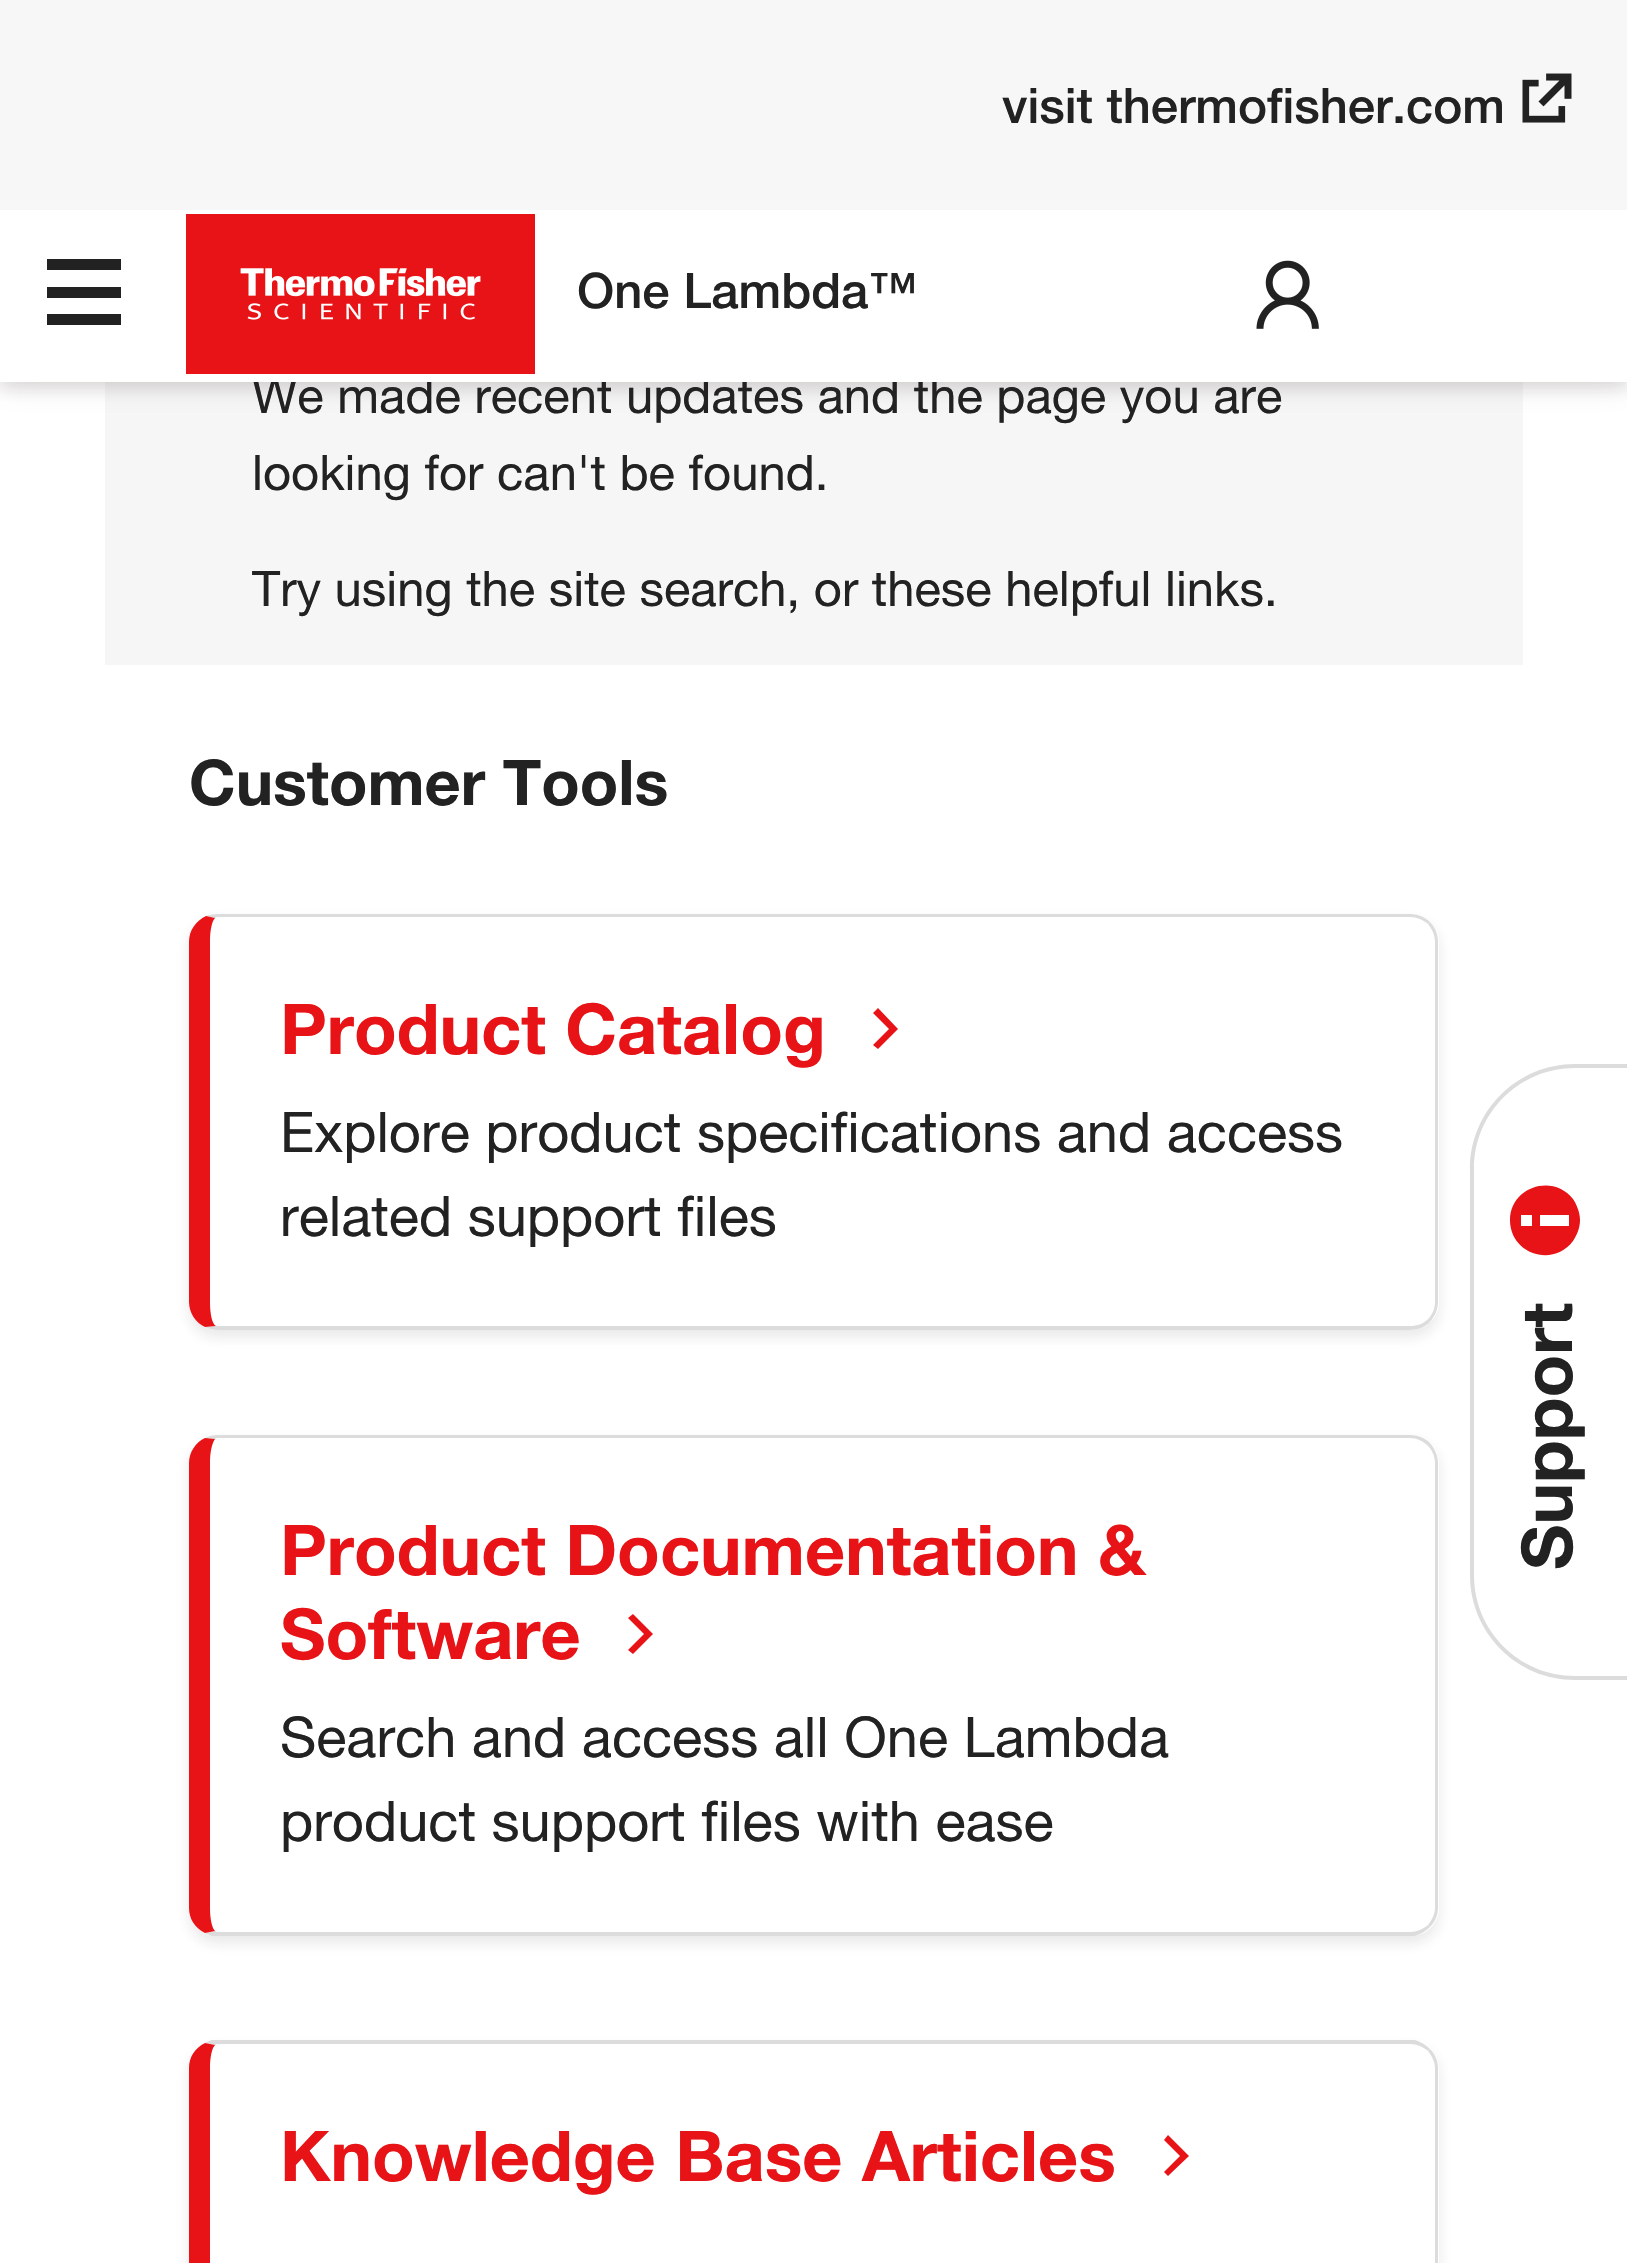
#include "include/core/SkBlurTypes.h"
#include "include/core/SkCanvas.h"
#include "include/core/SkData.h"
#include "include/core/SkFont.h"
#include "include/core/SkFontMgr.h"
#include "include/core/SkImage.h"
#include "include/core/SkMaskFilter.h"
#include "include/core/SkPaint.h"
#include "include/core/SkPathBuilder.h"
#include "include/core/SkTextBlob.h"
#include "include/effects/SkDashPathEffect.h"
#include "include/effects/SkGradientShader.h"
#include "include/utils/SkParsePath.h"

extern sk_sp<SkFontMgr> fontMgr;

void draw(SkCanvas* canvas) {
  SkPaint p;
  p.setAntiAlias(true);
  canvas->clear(SK_ColorWHITE);
  p.setColor(SkColorSetRGB(246, 246, 246));
  canvas->drawRect(SkRect::MakeLTRB(105, 382, 1523, 665), p);
  p.setColor(SkColorSetARGB(26, 34, 34, 34));
  p.setMaskFilter(SkMaskFilter::MakeBlur(kNormal_SkBlurStyle, 7));
  canvas->drawRect(SkRect::MakeLTRB(0, 7, 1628, 389), p);
  p.setMaskFilter(nullptr);
  p.setColor(SkColorSetARGB(77, 136, 114, 114));
  p.setMaskFilter(SkMaskFilter::MakeBlur(kNormal_SkBlurStyle, 16));
  canvas->drawRect(SkRect::MakeLTRB(0, -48, 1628, 378), p);
  p.setMaskFilter(nullptr);
  p.setColor(SkColorSetRGB(247, 247, 247));
  canvas->drawRect(SkRect::MakeLTRB(0, 0, 1627, 210), p);
  canvas->drawImageRect(SkImages::DeferredFromEncodedData(SkData::MakeFromFileName("images/1.png")), SkRect::MakeLTRB(1522, 73, 1572, 123), SkSamplingOptions());
  canvas->save();
  canvas->clipPath(SkPathBuilder(SkPathFillType::kEvenOdd).moveTo(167, 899).lineTo(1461, 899).lineTo(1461, 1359).lineTo(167, 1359).close().moveTo(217, 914).lineTo(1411, 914).cubicTo(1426.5f, 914, 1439, 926.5f, 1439, 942).lineTo(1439, 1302).cubicTo(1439, 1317.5f, 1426.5f, 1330, 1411, 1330).lineTo(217, 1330).cubicTo(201.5f, 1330, 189, 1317.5f, 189, 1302).lineTo(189, 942).cubicTo(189, 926.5f, 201.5f, 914, 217, 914).close().detach(), true);
  p.setColor(SkColorSetARGB(26, 34, 34, 34));
  p.setMaskFilter(SkMaskFilter::MakeBlur(kNormal_SkBlurStyle, 7));
  canvas->drawRoundRect(SkRect::MakeLTRB(189, 921, 1439, 1337), 28, 28, p);
  p.setMaskFilter(nullptr);
  canvas->restore();
  p.setColor(SkColorSetRGB(220, 220, 220));
  canvas->drawPath(SkPathBuilder().moveTo(217, 914).cubicTo(213, 914, 209, 915, 206, 916).lineTo(215, 918).lineTo(217, 917).lineTo(1410, 917).cubicTo(1417, 917, 1423, 920, 1428, 924).lineTo(1430, 922).cubicTo(1425, 917, 1418, 914, 1410, 914).close().detach(), p);
  canvas->drawPath(SkPathBuilder().moveTo(1430, 922).cubicTo(1435, 927, 1438, 934, 1438, 942).lineTo(1438, 1302).cubicTo(1438, 1309, 1435, 1316, 1430, 1322).lineTo(1428, 1319).cubicTo(1432, 1315, 1435, 1309, 1435, 1302).lineTo(1435, 942).cubicTo(1435, 935, 1432, 929, 1428, 924).close().detach(), p);
  canvas->drawPath(SkPathBuilder().moveTo(217, 1330).lineTo(1410, 1330).cubicTo(1418, 1330, 1425, 1327, 1430, 1322).lineTo(1428, 1319).cubicTo(1423, 1324, 1417, 1326, 1410, 1326).lineTo(217, 1326).lineTo(216, 1326).lineTo(205, 1327).cubicTo(209, 1329, 213, 1330, 217, 1330).close().detach(), p);
  p.setColor(SkColorSetRGB(231, 19, 22));
  canvas->drawPath(SkPathBuilder().moveTo(189, 942).lineTo(189, 1302).cubicTo(189, 1313, 196, 1323, 205, 1327).lineTo(216, 1326).cubicTo(212, 1324, 210, 1314, 210, 1302).lineTo(210, 942).cubicTo(210, 930, 212, 921, 215, 918).lineTo(206, 916).cubicTo(196, 921, 189, 930, 189, 942).close().detach(), p);
  canvas->drawPath(SkPathBuilder().moveTo(889, 1029).lineTo(873, 1013).lineTo(878, 1008).lineTo(898, 1029).lineTo(878, 1049).lineTo(873, 1045).close().detach(), p);
  canvas->save();
  canvas->clipPath(SkPathBuilder(SkPathFillType::kEvenOdd).moveTo(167, 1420).lineTo(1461, 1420).lineTo(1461, 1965).lineTo(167, 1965).close().moveTo(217, 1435).lineTo(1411, 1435).cubicTo(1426.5f, 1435, 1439, 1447.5f, 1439, 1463).lineTo(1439, 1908).cubicTo(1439, 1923.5f, 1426.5f, 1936, 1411, 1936).lineTo(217, 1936).cubicTo(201.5f, 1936, 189, 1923.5f, 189, 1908).lineTo(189, 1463).cubicTo(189, 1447.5f, 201.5f, 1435, 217, 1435).close().detach(), true);
  p.setColor(SkColorSetARGB(26, 34, 34, 34));
  p.setMaskFilter(SkMaskFilter::MakeBlur(kNormal_SkBlurStyle, 7));
  canvas->drawRoundRect(SkRect::MakeLTRB(189, 1442, 1439, 1943), 28, 28, p);
  p.setMaskFilter(nullptr);
  canvas->restore();
  p.setColor(SkColorSetRGB(220, 220, 220));
  canvas->drawPath(SkPathBuilder().moveTo(217, 1435).cubicTo(213, 1435, 209, 1436, 205, 1438).lineTo(215, 1439).lineTo(217, 1438).lineTo(1410, 1438).cubicTo(1417, 1438, 1423, 1441, 1428, 1446).lineTo(1430, 1443).cubicTo(1425, 1438, 1418, 1435, 1410, 1435).close().detach(), p);
  canvas->drawPath(SkPathBuilder().moveTo(1430, 1443).cubicTo(1435, 1449, 1438, 1456, 1438, 1463).lineTo(1438, 1908).cubicTo(1438, 1915, 1435, 1922, 1430, 1927).lineTo(1428, 1925).cubicTo(1432, 1920, 1435, 1914, 1435, 1908).lineTo(1435, 1463).cubicTo(1435, 1456, 1432, 1450, 1428, 1446).close().detach(), p);
  canvas->drawPath(SkPathBuilder().moveTo(212, 1936).lineTo(205, 1933).lineTo(215, 1931).lineTo(217, 1932).lineTo(1410, 1932).cubicTo(1417, 1932, 1423, 1929, 1428, 1925).lineTo(1430, 1927).cubicTo(1426, 1931, 1421, 1934, 1415, 1936).close().detach(), p);
  p.setColor(SkColorSetRGB(231, 19, 22));
  canvas->drawPath(SkPathBuilder().moveTo(189, 1463).lineTo(189, 1908).cubicTo(189, 1919, 195, 1928, 205, 1933).lineTo(215, 1931).cubicTo(212, 1928, 210, 1919, 210, 1908).lineTo(210, 1463).cubicTo(210, 1452, 212, 1443, 215, 1439).lineTo(205, 1438).cubicTo(196, 1442, 189, 1452, 189, 1463).close().detach(), p);
  canvas->drawPath(SkPathBuilder().moveTo(644, 1634).lineTo(628, 1618).lineTo(633, 1614).lineTo(653, 1634).lineTo(633, 1654).lineTo(628, 1650).close().detach(), p);
  canvas->save();
  canvas->clipPath(SkPathBuilder(SkPathFillType::kEvenOdd).moveTo(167, 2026).lineTo(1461, 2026).lineTo(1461, 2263).lineTo(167, 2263).close().moveTo(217, 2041).lineTo(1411, 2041).cubicTo(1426.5f, 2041, 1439, 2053.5f, 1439, 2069).lineTo(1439, 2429).cubicTo(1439, 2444.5f, 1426.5f, 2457, 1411, 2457).lineTo(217, 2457).cubicTo(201.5f, 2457, 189, 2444.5f, 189, 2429).lineTo(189, 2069).cubicTo(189, 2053.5f, 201.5f, 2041, 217, 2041).close().detach(), true);
  p.setColor(SkColorSetARGB(26, 34, 34, 34));
  p.setMaskFilter(SkMaskFilter::MakeBlur(kNormal_SkBlurStyle, 7));
  canvas->drawRoundRect(SkRect::MakeLTRB(189, 2048, 1439, 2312), 28, 28, p);
  p.setMaskFilter(nullptr);
  canvas->restore();
  p.setColor(SkColorSetRGB(220, 220, 220));
  canvas->drawPath(SkPathBuilder().moveTo(217, 2044).lineTo(215, 2045).lineTo(205, 2043).cubicTo(207, 2042, 209, 2041, 212, 2040).lineTo(1415, 2040).cubicTo(1421, 2042, 1426, 2045, 1430, 2049).lineTo(1428, 2051).cubicTo(1423, 2047, 1417, 2044, 1410, 2044).close().detach(), p);
  canvas->drawPath(SkPathBuilder().moveTo(1430, 2049).cubicTo(1435, 2054, 1438, 2061, 1438, 2068).lineTo(1438, 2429).cubicTo(1438, 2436, 1435, 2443, 1430, 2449).lineTo(1428, 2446).cubicTo(1432, 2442, 1435, 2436, 1435, 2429).lineTo(1435, 2068).cubicTo(1435, 2062, 1432, 2056, 1428, 2051).close().detach(), p);
  p.setColor(SkColorSetRGB(231, 19, 22));
  canvas->drawPath(SkPathBuilder().moveTo(189, 2068).lineTo(189, 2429).cubicTo(189, 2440, 196, 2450, 205, 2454).lineTo(215, 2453).cubicTo(212, 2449, 210, 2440, 210, 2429).lineTo(210, 2068).cubicTo(210, 2057, 212, 2048, 215, 2045).lineTo(205, 2043).cubicTo(195, 2048, 189, 2057, 189, 2068).close().detach(), p);
  canvas->drawPath(SkPathBuilder().moveTo(1180, 2156).lineTo(1164, 2140).lineTo(1168, 2135).lineTo(1189, 2156).lineTo(1168, 2176).lineTo(1164, 2172).close().detach(), p);
  p.setColor(SkColorSetRGB(220, 220, 220));
  canvas->drawPath(SkPathBuilder(SkPathFillType::kEvenOdd).moveTo(1575, 1064).lineTo(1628, 1064).lineTo(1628, 1680).lineTo(1575, 1680).cubicTo(1517, 1680, 1470, 1633, 1470, 1575).lineTo(1470, 1169).cubicTo(1470, 1111, 1517, 1064, 1575, 1064).close().moveTo(1575, 1068).lineTo(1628, 1068).lineTo(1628, 1676).lineTo(1575, 1676).cubicTo(1519, 1676, 1474, 1631, 1474, 1575).lineTo(1474, 1169).cubicTo(1474, 1113, 1519, 1068, 1575, 1068).close().detach(), p);
  p.setColor(SkColorSetRGB(231, 19, 22));
  canvas->drawPath(SkPathBuilder().moveTo(1510, 1220).cubicTo(1510, 1254, 1553, 1268, 1573, 1241).cubicTo(1577, 1235, 1580, 1228, 1580, 1220).cubicTo(1580, 1213, 1577, 1205, 1573, 1199).cubicTo(1553, 1173, 1510, 1187, 1510, 1220).close().moveTo(1542, 1215).lineTo(1569, 1215).lineTo(1569, 1226).lineTo(1540, 1226).lineTo(1540, 1215).close().moveTo(1523, 1215).lineTo(1532, 1215).lineTo(1532, 1226).lineTo(1521, 1226).lineTo(1521, 1215).close().detach(), p);
  SkFont font1(fontMgr->matchFamilyStyle("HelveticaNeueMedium", SkFontStyle(500, SkFontStyle::kNormal_Width, SkFontStyle::kUpright_Slant)), 49);
  font1.setSubpixel(true);
  p.setColor(SkColorSetRGB(34, 34, 34));
  canvas->drawString("visit thermofisher.com", 1002, 123, font1, p);
  SkFont font2(fontMgr->matchFamilyStyle("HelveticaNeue", SkFontStyle::Normal()), 49);
  font2.setSubpixel(true);
  canvas->drawString("We made recent updates and the page you are", 252, 413, font2, p);
  p.setColor(SK_ColorWHITE);
  canvas->drawRect(SkRect::MakeLTRB(0, 210, 1627, 382), p);
  canvas->drawImageRect(SkImages::DeferredFromEncodedData(SkData::MakeFromFileName("images/3.png")), SkRect::MakeLTRB(1256, 260, 1319, 329), SkSamplingOptions());
  p.setColor(SkColorSetRGB(34, 34, 34));
  canvas->drawPath(SkPathBuilder().moveTo(121, 259).lineTo(121, 270).lineTo(47, 270).lineTo(47, 259).close().moveTo(47, 298).lineTo(121, 298).lineTo(121, 287).lineTo(47, 287).close().moveTo(47, 325).lineTo(121, 325).lineTo(121, 314).lineTo(47, 314).close().detach(), p);
  canvas->drawString("One Lambda™", 577, 308, font1, p);
  canvas->drawImageRect(SkImages::DeferredFromEncodedData(SkData::MakeFromFileName("images/2.png")), SkRect::MakeLTRB(186, 214, 535, 374), SkSamplingOptions());
  canvas->drawString("looking for can't be found.", 252, 490, font2, p);
  canvas->drawString("Try using the site search, or these helpful links.", 252, 606, font2, p);
  SkFont font3(fontMgr->matchFamilyStyle("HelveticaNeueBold", SkFontStyle::Bold()), 63);
  font3.setSubpixel(true);
  canvas->drawString("Customer Tools", 189, 805, font3, p);
  SkFont font4(fontMgr->matchFamilyStyle("HelveticaNeueBold", SkFontStyle::Bold()), 70);
  font4.setSubpixel(true);
  p.setColor(SkColorSetRGB(231, 19, 22));
  canvas->drawString("Product Catalog", 280, 1054, font4, p);
  SkFont font5(fontMgr->matchFamilyStyle("HelveticaNeue", SkFontStyle::Normal()), 56);
  font5.setSubpixel(true);
  p.setColor(SkColorSetRGB(34, 34, 34));
  canvas->drawString("Explore product specifications and access", 280, 1152, font5, p);
  canvas->drawString("related support files", 280, 1236, font5, p);
  p.setColor(SkColorSetRGB(231, 19, 22));
  canvas->drawString("Product Documentation &", 280, 1575, font4, p);
  canvas->drawString("Software", 280, 1659, font4, p);
  p.setColor(SkColorSetRGB(34, 34, 34));
  canvas->drawString("Search and access all One Lambda", 280, 1757, font5, p);
  canvas->drawString("product support files with ease", 280, 1841, font5, p);
  p.setColor(SkColorSetRGB(231, 19, 22));
  canvas->drawString("Knowledge Base Articles", 280, 2181, font4, p);
  p.setColor(SkColorSetRGB(34, 34, 34));
  canvas->save();
  canvas->rotate(-90, 1572, 1570);
  canvas->drawString("Support", 1572, 1570, font4, p);
  canvas->restore();
}
